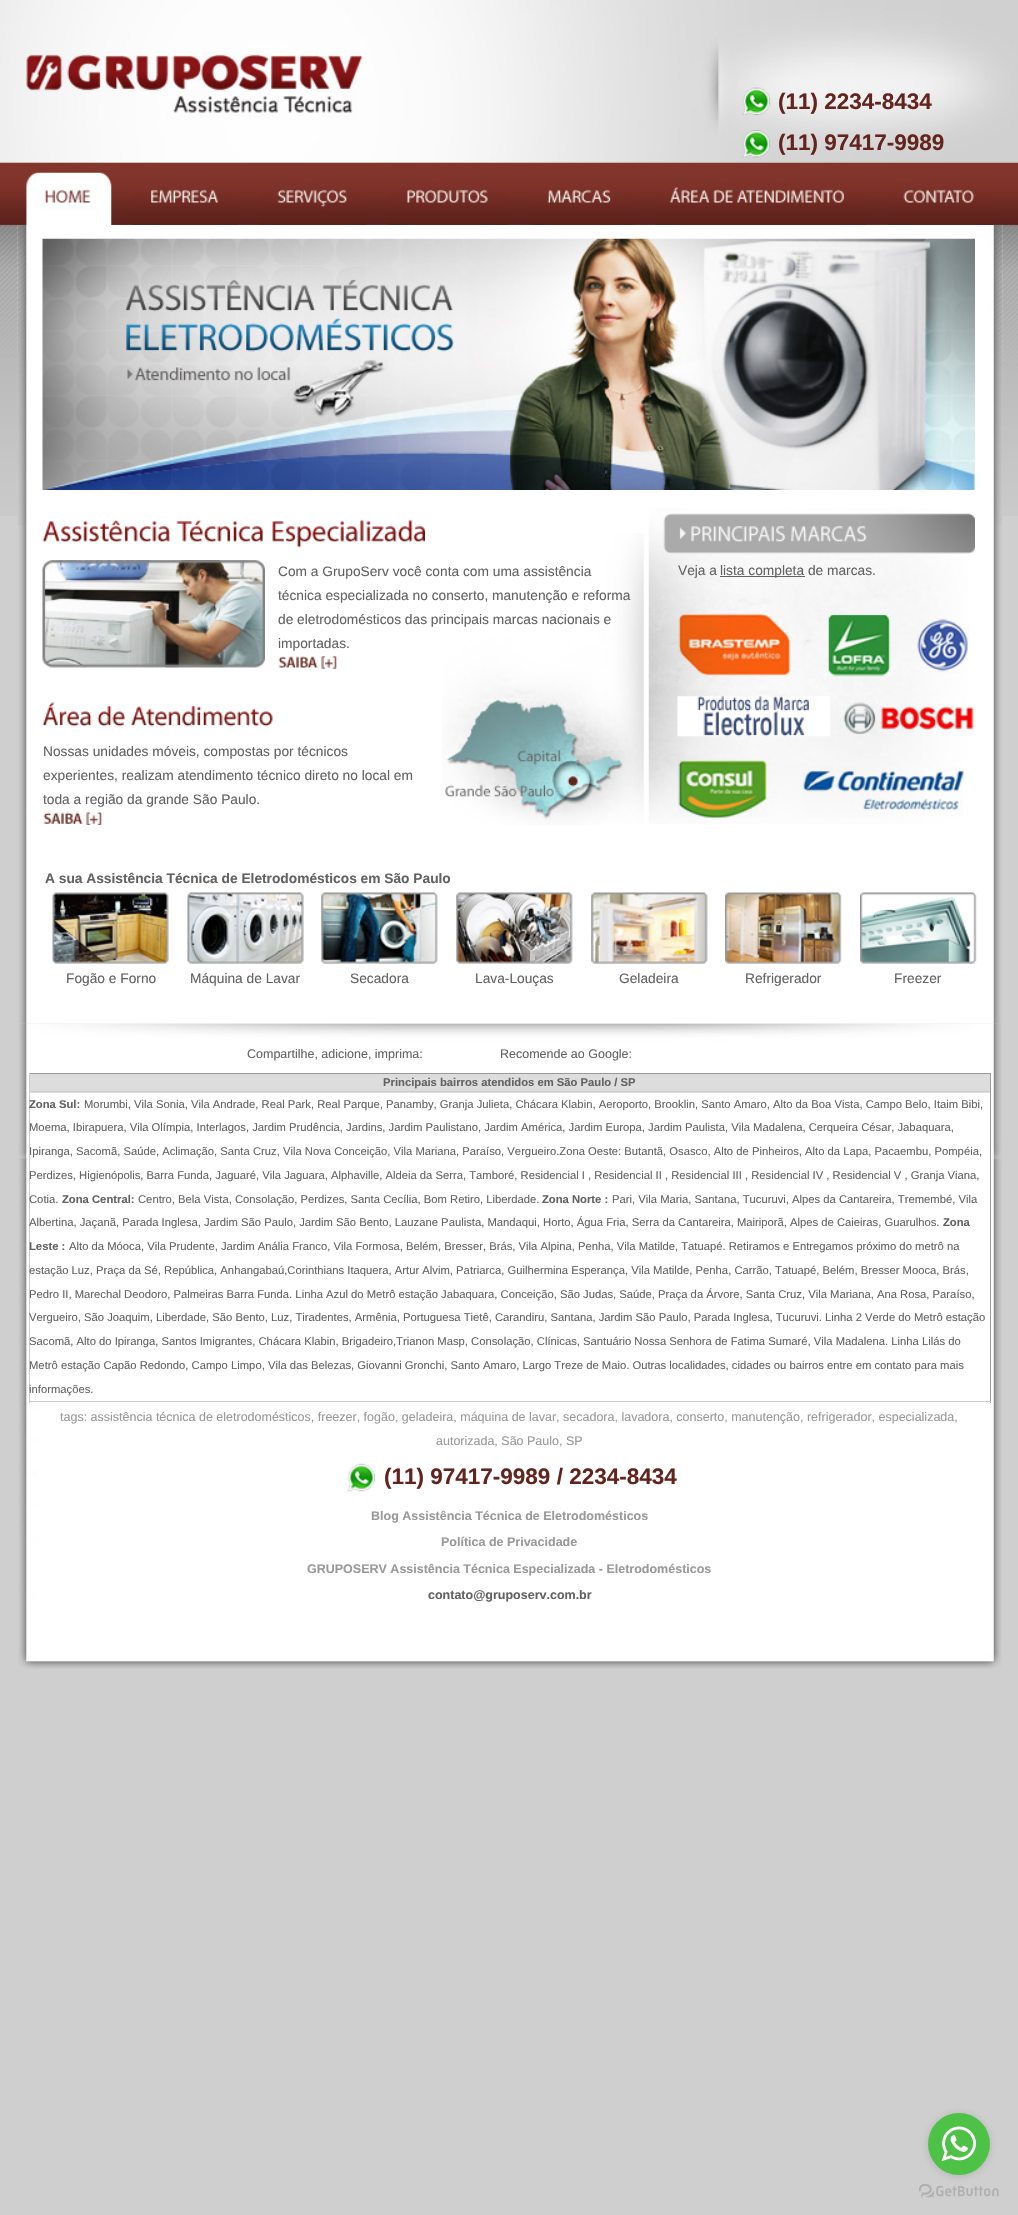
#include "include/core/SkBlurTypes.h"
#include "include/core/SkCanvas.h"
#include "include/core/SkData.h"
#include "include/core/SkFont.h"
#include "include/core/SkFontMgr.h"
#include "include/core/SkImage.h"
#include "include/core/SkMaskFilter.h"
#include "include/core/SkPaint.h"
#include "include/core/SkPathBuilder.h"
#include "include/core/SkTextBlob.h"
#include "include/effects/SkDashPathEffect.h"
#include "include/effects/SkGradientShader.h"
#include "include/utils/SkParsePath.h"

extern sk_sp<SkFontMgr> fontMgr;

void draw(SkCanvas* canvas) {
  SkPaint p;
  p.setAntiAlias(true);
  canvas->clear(SkColorSetRGB(207, 207, 207));
  canvas->drawImageRect(SkImages::DeferredFromEncodedData(SkData::MakeFromFileName("images/1.png")), SkRect::MakeLTRB(0, 162, 1018, 516), SkSamplingOptions());
  canvas->drawImageRect(SkImages::DeferredFromEncodedData(SkData::MakeFromFileName("images/2.png")), SkRect::MakeLTRB(0, 0, 1018, 163), SkSamplingOptions());
  canvas->drawImageRect(SkImages::DeferredFromEncodedData(SkData::MakeFromFileName("images/3.png")), SkRect::MakeLTRB(26, 51, 366, 120), SkSamplingOptions());
  canvas->drawImageRect(SkImages::DeferredFromEncodedData(SkData::MakeFromFileName("images/4.png")), SkRect::MakeLTRB(742, 87, 771, 116), SkSamplingOptions());
  canvas->drawImageRect(SkImages::DeferredFromEncodedData(SkData::MakeFromFileName("images/5.png")), SkRect::MakeLTRB(742, 130, 771, 158), SkSamplingOptions());
  canvas->drawImageRect(SkImages::DeferredFromEncodedData(SkData::MakeFromFileName("images/6.png")), SkRect::MakeLTRB(26, 172, 112, 225), SkSamplingOptions());
  canvas->drawImageRect(SkImages::DeferredFromEncodedData(SkData::MakeFromFileName("images/7.png")), SkRect::MakeLTRB(133, 183, 238, 225), SkSamplingOptions());
  canvas->drawImageRect(SkImages::DeferredFromEncodedData(SkData::MakeFromFileName("images/8.png")), SkRect::MakeLTRB(259, 183, 366, 225), SkSamplingOptions());
  canvas->drawImageRect(SkImages::DeferredFromEncodedData(SkData::MakeFromFileName("images/9.png")), SkRect::MakeLTRB(388, 183, 508, 225), SkSamplingOptions());
  canvas->drawImageRect(SkImages::DeferredFromEncodedData(SkData::MakeFromFileName("images/10.png")), SkRect::MakeLTRB(529, 182, 634, 225), SkSamplingOptions());
  canvas->drawImageRect(SkImages::DeferredFromEncodedData(SkData::MakeFromFileName("images/11.png")), SkRect::MakeLTRB(655, 182, 866, 225), SkSamplingOptions());
  canvas->drawImageRect(SkImages::DeferredFromEncodedData(SkData::MakeFromFileName("images/12.png")), SkRect::MakeLTRB(888, 183, 994, 225), SkSamplingOptions());
  canvas->drawImageRect(SkImages::DeferredFromEncodedData(SkData::MakeFromFileName("images/13.png")), SkRect::MakeLTRB(17, 225, 1003, 1024), SkSamplingOptions());
  canvas->drawImageRect(SkImages::DeferredFromEncodedData(SkData::MakeFromFileName("images/14.png")), SkRect::MakeLTRB(17, 225, 1003, 525), SkSamplingOptions());
  canvas->drawImageRect(SkImages::DeferredFromEncodedData(SkData::MakeFromFileName("images/15.png")), SkRect::MakeLTRB(42, 238, 975, 490), SkSamplingOptions());
  canvas->drawImageRect(SkImages::DeferredFromEncodedData(SkData::MakeFromFileName("images/16.png")), SkRect::MakeLTRB(442, 533, 644, 825), SkSamplingOptions());
  canvas->drawImageRect(SkImages::DeferredFromEncodedData(SkData::MakeFromFileName("images/17.png")), SkRect::MakeLTRB(42, 519, 425, 548), SkSamplingOptions());
  canvas->drawImageRect(SkImages::DeferredFromEncodedData(SkData::MakeFromFileName("images/18.png")), SkRect::MakeLTRB(42, 560, 265, 668), SkSamplingOptions());
  canvas->drawImageRect(SkImages::DeferredFromEncodedData(SkData::MakeFromFileName("images/19.png")), SkRect::MakeLTRB(278, 656, 337, 669), SkSamplingOptions());
  canvas->drawImageRect(SkImages::DeferredFromEncodedData(SkData::MakeFromFileName("images/20.png")), SkRect::MakeLTRB(42, 702, 273, 727), SkSamplingOptions());
  canvas->drawImageRect(SkImages::DeferredFromEncodedData(SkData::MakeFromFileName("images/21.png")), SkRect::MakeLTRB(43, 812, 102, 825), SkSamplingOptions());
  canvas->drawImageRect(SkImages::DeferredFromEncodedData(SkData::MakeFromFileName("images/22.png")), SkRect::MakeLTRB(648, 508, 975, 824), SkSamplingOptions());
  canvas->drawImageRect(SkImages::DeferredFromEncodedData(SkData::MakeFromFileName("images/23.png")), SkRect::MakeLTRB(679, 526, 867, 542), SkSamplingOptions());
  p.setColor(SkColorSetRGB(98, 98, 98));
  canvas->drawRect(SkRect::MakeLTRB(720, 576, 805, 577), p);
  canvas->drawImageRect(SkImages::DeferredFromEncodedData(SkData::MakeFromFileName("images/24.png")), SkRect::MakeLTRB(677, 613, 806, 676), SkSamplingOptions());
  canvas->drawImageRect(SkImages::DeferredFromEncodedData(SkData::MakeFromFileName("images/25.png")), SkRect::MakeLTRB(806, 614, 897, 677), SkSamplingOptions());
  canvas->drawImageRect(SkImages::DeferredFromEncodedData(SkData::MakeFromFileName("images/26.png")), SkRect::MakeLTRB(910, 614, 970, 674), SkSamplingOptions());
  canvas->drawImageRect(SkImages::DeferredFromEncodedData(SkData::MakeFromFileName("images/27.png")), SkRect::MakeLTRB(677, 696, 830, 737), SkSamplingOptions());
  canvas->drawImageRect(SkImages::DeferredFromEncodedData(SkData::MakeFromFileName("images/28.png")), SkRect::MakeLTRB(839, 696, 974, 736), SkSamplingOptions());
  canvas->drawImageRect(SkImages::DeferredFromEncodedData(SkData::MakeFromFileName("images/29.png")), SkRect::MakeLTRB(677, 756, 767, 818), SkSamplingOptions());
  canvas->drawImageRect(SkImages::DeferredFromEncodedData(SkData::MakeFromFileName("images/30.png")), SkRect::MakeLTRB(802, 766, 964, 817), SkSamplingOptions());
  canvas->drawImageRect(SkImages::DeferredFromEncodedData(SkData::MakeFromFileName("images/31.png")), SkRect::MakeLTRB(52, 892, 169, 964), SkSamplingOptions());
  canvas->drawImageRect(SkImages::DeferredFromEncodedData(SkData::MakeFromFileName("images/32.png")), SkRect::MakeLTRB(187, 892, 304, 964), SkSamplingOptions());
  canvas->drawImageRect(SkImages::DeferredFromEncodedData(SkData::MakeFromFileName("images/33.png")), SkRect::MakeLTRB(321, 892, 438, 964), SkSamplingOptions());
  canvas->drawImageRect(SkImages::DeferredFromEncodedData(SkData::MakeFromFileName("images/34.png")), SkRect::MakeLTRB(456, 892, 573, 964), SkSamplingOptions());
  canvas->drawImageRect(SkImages::DeferredFromEncodedData(SkData::MakeFromFileName("images/35.png")), SkRect::MakeLTRB(591, 892, 708, 964), SkSamplingOptions());
  canvas->drawImageRect(SkImages::DeferredFromEncodedData(SkData::MakeFromFileName("images/36.png")), SkRect::MakeLTRB(725, 892, 842, 964), SkSamplingOptions());
  canvas->drawImageRect(SkImages::DeferredFromEncodedData(SkData::MakeFromFileName("images/37.png")), SkRect::MakeLTRB(860, 892, 977, 964), SkSamplingOptions());
  canvas->drawImageRect(SkImages::DeferredFromEncodedData(SkData::MakeFromFileName("images/38.png")), SkRect::MakeLTRB(18, 1023, 1002, 1669), SkSamplingOptions());
  p.setColor(SkColorSetRGB(153, 153, 153));
  canvas->drawRect(SkRect::MakeLTRB(29, 1073, 991, 1074), p);
  canvas->drawRect(SkRect::MakeLTRB(990, 1073, 991, 1403), p);
  p.setColor(SkColorSetRGB(204, 204, 204));
  canvas->drawRect(SkRect::MakeLTRB(29, 1401, 991, 1402), p);
  canvas->drawRect(SkRect::MakeLTRB(29, 1073, 30, 1403), p);
  p.setColor(SkColorSetRGB(221, 221, 221));
  canvas->drawRect(SkRect::MakeLTRB(30, 1074, 990, 1093), p);
  p.setColor(SkColorSetRGB(204, 204, 204));
  canvas->drawRect(SkRect::MakeLTRB(30, 1091, 990, 1092), p);
  canvas->drawImageRect(SkImages::DeferredFromEncodedData(SkData::MakeFromFileName("images/39.png")), SkRect::MakeLTRB(347, 1463, 376, 1492), SkSamplingOptions());
  canvas->drawImageRect(SkImages::DeferredFromEncodedData(SkData::MakeFromFileName("images/41.png")), SkRect::MakeLTRB(919, 2184, 999, 2198), SkSamplingOptions());
  p.setColor(SkColorSetARGB(102, 136, 136, 136));
  p.setMaskFilter(SkMaskFilter::MakeBlur(kNormal_SkBlurStyle, 4.5f));
  canvas->drawRoundRect(SkRect::MakeLTRB(928, 2114, 990, 2176), 31, 31, p);
  p.setMaskFilter(nullptr);
  p.setColor(SkColorSetRGB(77, 194, 71));
  canvas->drawCircle(959, 2144, 31, p);
  canvas->drawImageRect(SkImages::DeferredFromEncodedData(SkData::MakeFromFileName("images/40.png")), SkRect::MakeLTRB(941, 2126, 976, 2162), SkSamplingOptions());
  SkFont font1(fontMgr->matchFamilyStyle("Liberation Sans", SkFontStyle::Bold()), 22.5f);
  font1.setSubpixel(true);
  p.setColor(SkColorSetRGB(99, 36, 29));
  canvas->drawString("(11) 2234-8434", 778, 109, font1, p);
  canvas->drawString("(11) 97417-9989", 778, 150, font1, p);
  SkFont font2(fontMgr->matchFamilyStyle("Liberation Sans", SkFontStyle::Normal()), 13.75f);
  font2.setSubpixel(true);
  p.setColor(SkColorSetRGB(98, 98, 98));
  canvas->drawString("Com a GrupoServ você conta com uma assistência", 278, 576, font2, p);
  canvas->drawString("técnica especializada no conserto, manutenção e reforma", 278, 600, font2, p);
  canvas->drawString("de eletrodomésticos das principais marcas nacionais e", 278, 624, font2, p);
  canvas->drawString("importadas.", 278, 648, font2, p);
  canvas->drawString("Nossas unidades móveis, compostas por técnicos", 43, 756, font2, p);
  canvas->drawString("experientes, realizam atendimento técnico direto no local em", 43, 780, font2, p);
  canvas->drawString("toda a região da grande São Paulo.", 43, 804, font2, p);
  canvas->drawString("Veja a", 678, 575, font2, p);
  canvas->drawString("lista completa de marcas.", 720, 575, font2, p);
  SkFont font3(fontMgr->matchFamilyStyle("Liberation Sans", SkFontStyle::Bold()), 13.75f);
  font3.setSubpixel(true);
  canvas->drawString("A sua Assistência Técnica de Eletrodomésticos em São Paulo", 45, 883, font3, p);
  canvas->drawString("Fogão e Forno", 66, 983, font2, p);
  canvas->drawString("Máquina de Lavar", 190, 983, font2, p);
  canvas->drawString("Secadora", 350, 983, font2, p);
  canvas->drawString("Lava-Louças", 475, 983, font2, p);
  canvas->drawString("Geladeira", 619, 983, font2, p);
  canvas->drawString("Refrigerador", 745, 983, font2, p);
  canvas->drawString("Freezer", 894, 983, font2, p);
  SkFont font4(fontMgr->matchFamilyStyle("Liberation Sans", SkFontStyle::Normal()), 12.5f);
  font4.setSubpixel(true);
  canvas->drawString("Compartilhe, adicione, imprima:", 247, 1058, font4, p);
  canvas->drawString("Recomende ao Google:", 500, 1058, font4, p);
  SkFont font5(fontMgr->matchFamilyStyle("Liberation Sans", SkFontStyle::Bold()), 11.25f);
  font5.setSubpixel(true);
  canvas->drawString("Principais bairros atendidos em São Paulo / SP", 383, 1086, font5, p);
  canvas->drawString("Zona Sul:", 29, 1108, font5, p);
  SkFont font6(fontMgr->matchFamilyStyle("Liberation Sans", SkFontStyle::Normal()), 11.25f);
  font6.setSubpixel(true);
  canvas->drawString("Morumbi, Vila Sonia, Vila Andrade, Real Park, Real Parque, Panamby, Granja Julieta, Chácara Klabin, Aeroporto, Brooklin, Santo Amaro, Alto da Boa Vista, Campo Belo, Itaim Bibi,", 84, 1108, font6, p);
  canvas->drawString("Moema, Ibirapuera, Vila Olímpia, Interlagos, Jardim Prudência, Jardins, Jardim Paulistano, Jardim América, Jardim Europa, Jardim Paulista, Vila Madalena, Cerqueira César, Jabaquara,", 29, 1131, font6, p);
  canvas->drawString("Ipiranga, Sacomã, Saúde, Aclimação, Santa Cruz, Vila Nova Conceição, Vila Mariana, Paraíso, Vergueiro.Zona Oeste: Butantã, Osasco, Alto de Pinheiros, Alto da Lapa, Pacaembu, Pompéia,", 29, 1155, font6, p);
  canvas->drawString("Perdizes, Higienópolis, Barra Funda, Jaguaré, Vila Jaguara, Alphaville, Aldeia da Serra, Tamboré, Residencial I , Residencial II , Residencial III , Residencial IV , Residencial V , Granja Viana,", 29, 1179, font6, p);
  canvas->drawString("Cotia.", 29, 1203, font6, p);
  canvas->drawString("Zona Central:", 62, 1203, font5, p);
  canvas->drawString("Centro, Bela Vista, Consolação, Perdizes, Santa Cecília, Bom Retiro, Liberdade.", 138, 1203, font6, p);
  canvas->drawString("Zona Norte :", 542, 1203, font5, p);
  canvas->drawString("Pari, Vila Maria, Santana, Tucuruvi, Alpes da Cantareira, Tremembé, Vila", 612, 1203, font6, p);
  canvas->drawString("Albertina, Jaçanã, Parada Inglesa, Jardim São Paulo, Jardim São Bento, Lauzane Paulista, Mandaqui, Horto, Água Fria, Serra da Cantareira, Mairiporã, Alpes de Caieiras, Guarulhos.", 29, 1226, font6, p);
  canvas->drawString("Zona", 943, 1226, font5, p);
  canvas->drawString("Leste :", 29, 1250, font5, p);
  canvas->drawString("Alto da Móoca, Vila Prudente, Jardim Anália Franco, Vila Formosa, Belém, Bresser, Brás, Vila Alpina, Penha, Vila Matilde, Tatuapé. Retiramos e Entregamos próximo do metrô na", 69, 1250, font6, p);
  canvas->drawString("estação Luz, Praça da Sé, República, Anhangabaú,Corinthians Itaquera, Artur Alvim, Patriarca, Guilhermina Esperança, Vila Matilde, Penha, Carrão, Tatuapé, Belém, Bresser Mooca, Brás,", 29, 1274, font6, p);
  canvas->drawString("Pedro II, Marechal Deodoro, Palmeiras Barra Funda. Linha Azul do Metrô estação Jabaquara, Conceição, São Judas, Saúde, Praça da Árvore, Santa Cruz, Vila Mariana, Ana Rosa, Paraíso,", 29, 1298, font6, p);
  canvas->drawString("Vergueiro, São Joaquim, Liberdade, São Bento, Luz, Tiradentes, Armênia, Portuguesa Tietê, Carandiru, Santana, Jardim São Paulo, Parada Inglesa, Tucuruvi. Linha 2 Verde do Metrô estação", 29, 1321, font6, p);
  canvas->drawString("Sacomã, Alto do Ipiranga, Santos Imigrantes, Chácara Klabin, Brigadeiro,Trianon Masp, Consolação, Clínicas, Santuário Nossa Senhora de Fatima Sumaré, Vila Madalena. Linha Lilás do", 29, 1345, font6, p);
  canvas->drawString("Metrô estação Capão Redondo, Campo Limpo, Vila das Belezas, Giovanni Gronchi, Santo Amaro, Largo Treze de Maio. Outras localidades, cidades ou bairros entre em contato para mais", 29, 1369, font6, p);
  canvas->drawString("informações.", 29, 1393, font6, p);
  p.setColor(SkColorSetRGB(153, 153, 153));
  canvas->drawString("tags: assistência técnica de eletrodomésticos, freezer, fogão, geladeira, máquina de lavar, secadora, lavadora, conserto, manutenção, refrigerador, especializada,", 60, 1421, font4, p);
  canvas->drawString("autorizada, São Paulo, SP", 436, 1445, font4, p);
  p.setColor(SkColorSetRGB(99, 36, 29));
  canvas->drawString("(11) 97417-9989 / 2234-8434", 384, 1484, font1, p);
  SkFont font7(fontMgr->matchFamilyStyle("Liberation Sans", SkFontStyle::Bold()), 12.5f);
  font7.setSubpixel(true);
  p.setColor(SkColorSetRGB(153, 153, 153));
  canvas->drawString("Blog Assistência Técnica de Eletrodomésticos", 371, 1520, font7, p);
  canvas->drawString("Política de Privacidade", 441, 1546, font7, p);
  canvas->drawString("GRUPOSERV Assistência Técnica Especializada - Eletrodomésticos", 307, 1573, font7, p);
  p.setColor(SkColorSetRGB(98, 98, 98));
  canvas->drawString("contato@gruposerv.com.br", 428, 1599, font7, p);
}
